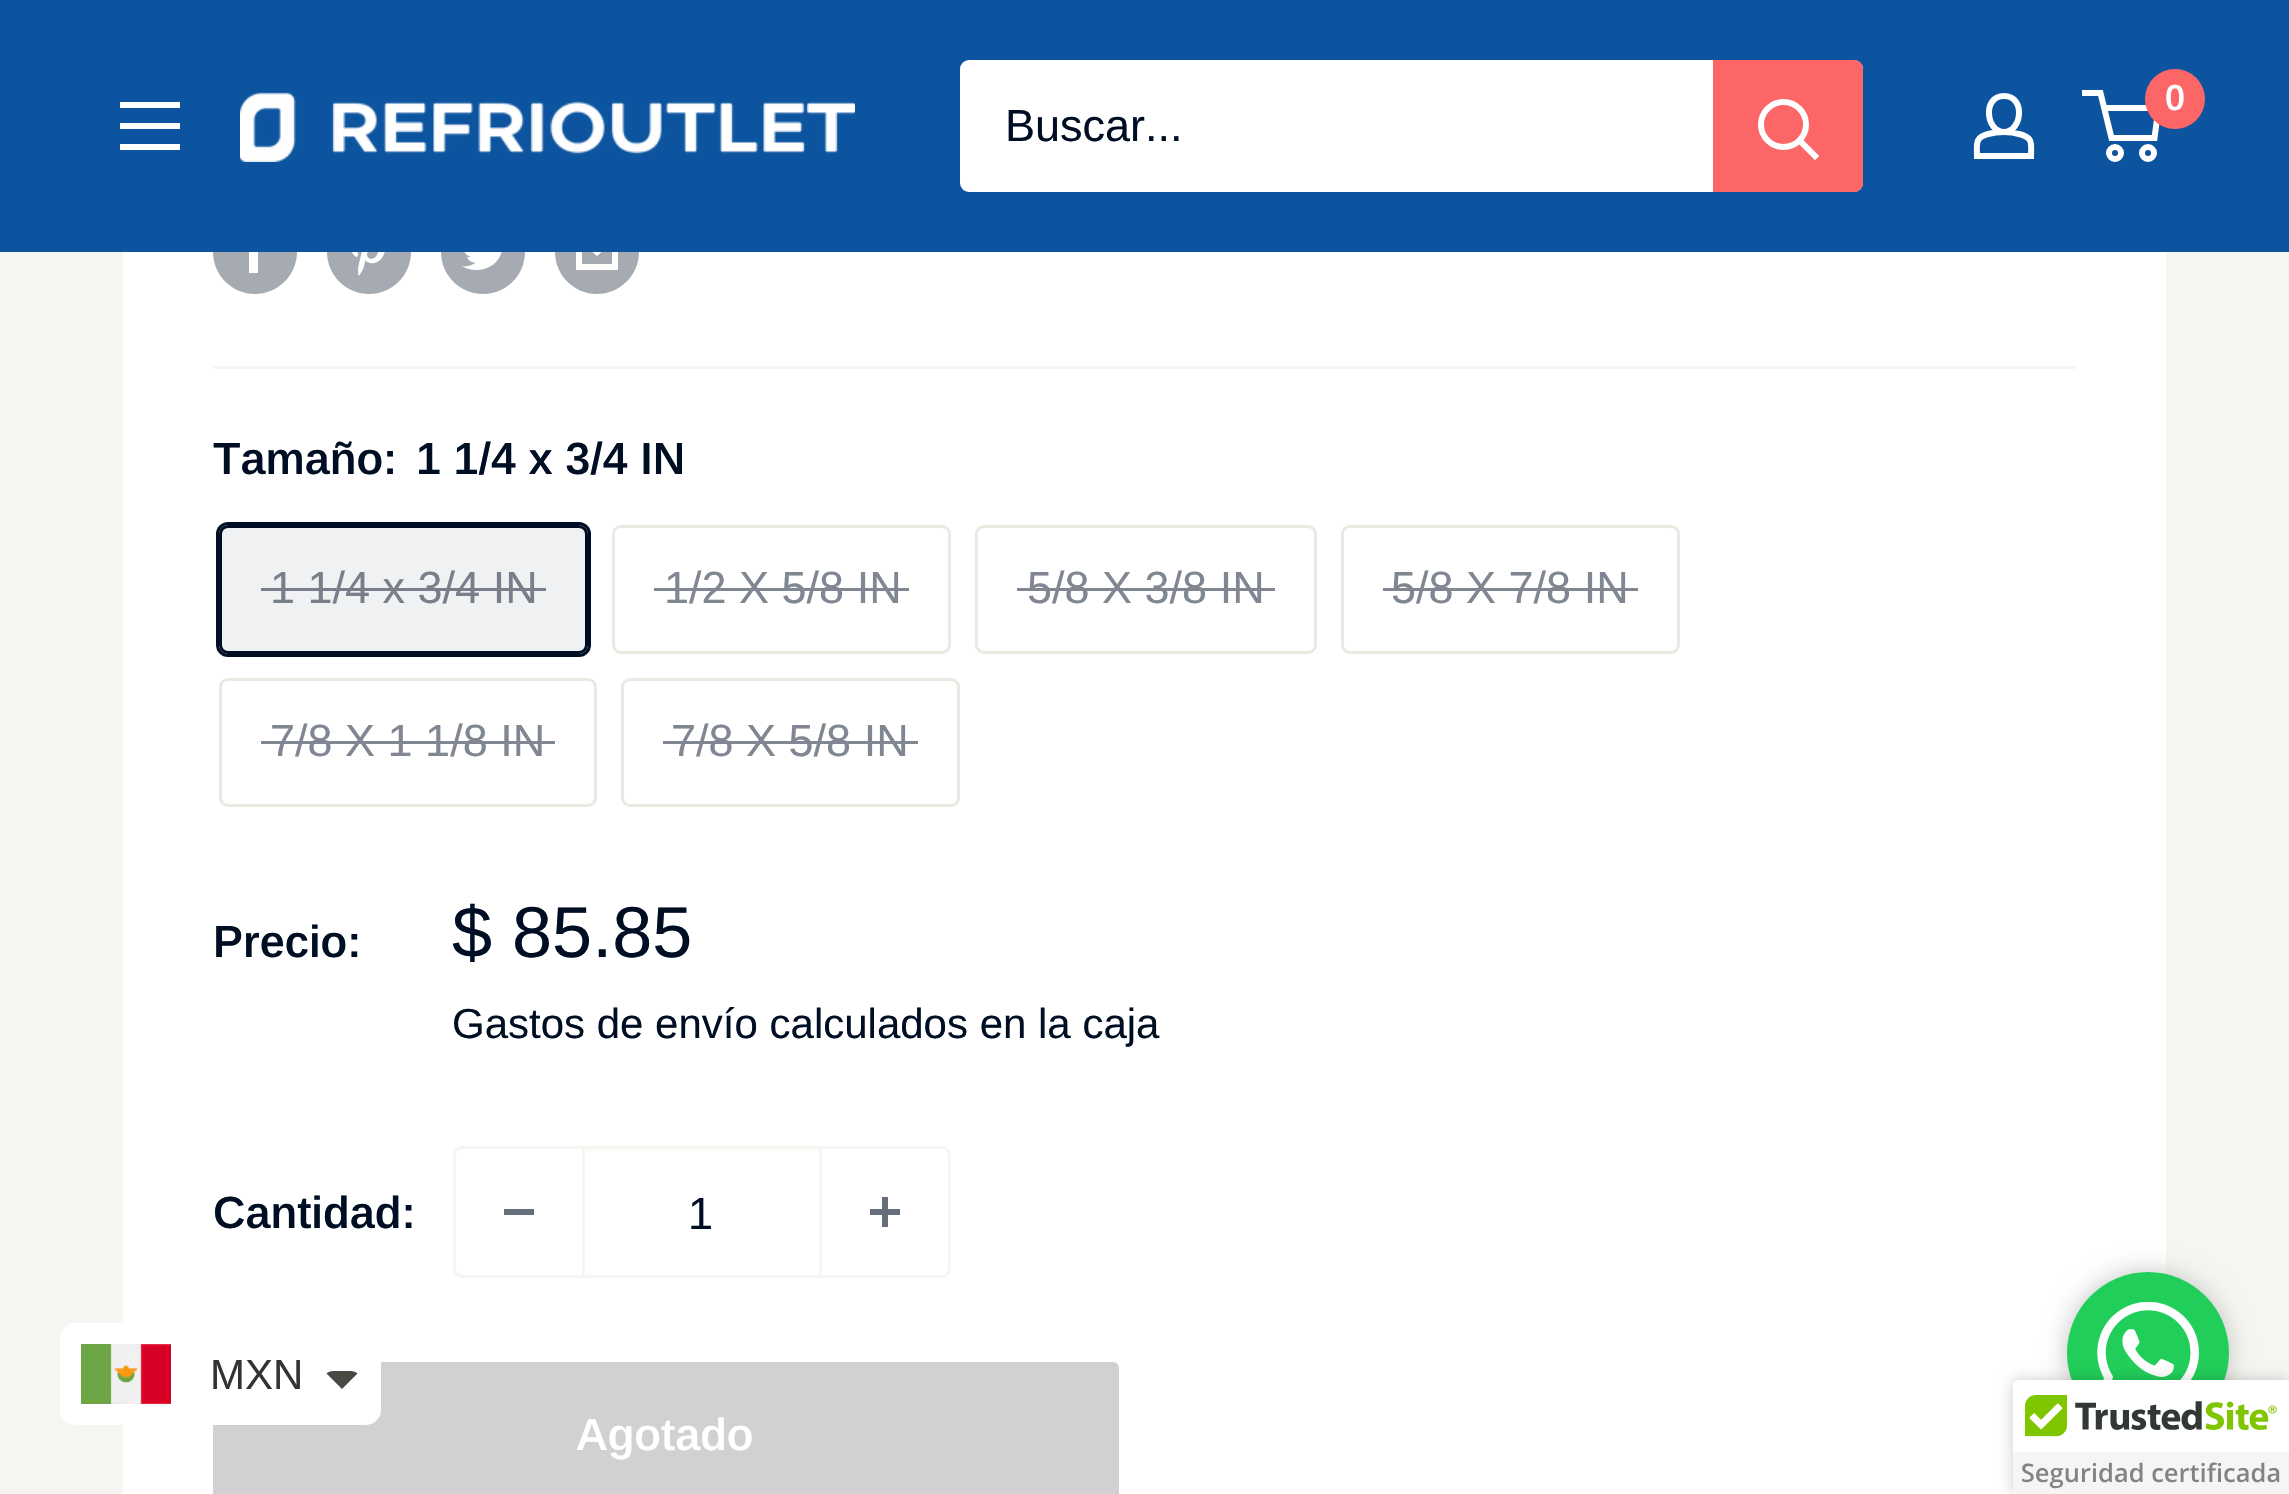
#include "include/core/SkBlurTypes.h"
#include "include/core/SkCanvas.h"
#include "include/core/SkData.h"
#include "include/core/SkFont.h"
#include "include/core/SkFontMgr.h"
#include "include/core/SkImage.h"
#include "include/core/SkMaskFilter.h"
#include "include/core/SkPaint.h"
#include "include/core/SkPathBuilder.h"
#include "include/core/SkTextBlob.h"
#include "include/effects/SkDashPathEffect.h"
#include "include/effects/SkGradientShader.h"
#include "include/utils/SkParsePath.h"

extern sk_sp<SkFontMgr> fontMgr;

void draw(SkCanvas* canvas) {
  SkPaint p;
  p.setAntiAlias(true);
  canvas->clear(SkColorSetRGB(245, 245, 241));
  p.setColor(SK_ColorWHITE);
  canvas->drawRect(SkRect::MakeLTRB(123, 252, 2166, 1494), p);
  p.setColor(SkColorSetRGB(166, 171, 178));
  canvas->drawPath(SkPathBuilder(SkPathFillType::kEvenOdd).moveTo(255, 294).cubicTo(232, 294, 213, 275, 213, 252).cubicTo(213, 229, 232, 210, 255, 210).cubicTo(278, 210, 297, 229, 297, 252).cubicTo(297, 275, 278, 294, 255, 294).close().moveTo(264, 246).lineTo(258, 246).cubicTo(258, 240, 257, 237, 264, 237).lineTo(264, 231).cubicTo(250, 231, 249, 233, 249, 246).lineTo(246, 246).lineTo(246, 252).lineTo(249, 252).lineTo(249, 273).lineTo(258, 273).lineTo(258, 252).lineTo(264, 252).close().detach(), p);
  canvas->drawPath(SkPathBuilder().moveTo(597, 294).cubicTo(574, 294, 555, 275, 555, 252).cubicTo(555, 229, 574, 210, 597, 210).cubicTo(620, 210, 639, 229, 639, 252).cubicTo(639, 275, 620, 294, 597, 294).close().moveTo(587, 240).lineTo(607, 240).lineTo(597, 248).close().moveTo(612, 243).lineTo(612, 264).lineTo(582, 264).lineTo(582, 243).lineTo(597, 256).close().moveTo(618, 234).lineTo(576, 234).lineTo(576, 270).lineTo(618, 270).close().detach(), p);
  p.setColor(SkColorSetRGB(12, 84, 159));
  canvas->drawRect(SkRect::MakeLTRB(0, 0, 2289, 252), p);
  p.setColor(SK_ColorWHITE);
  canvas->drawPath(SkPathBuilder(SkPathFillType::kEvenOdd).moveTo(120, 144).lineTo(180, 144).lineTo(180, 150).lineTo(120, 150).close().moveTo(120, 102).lineTo(180, 102).lineTo(180, 108).lineTo(120, 108).close().moveTo(120, 123).lineTo(180, 123).lineTo(180, 129).lineTo(120, 129).close().detach(), p);
  canvas->drawImageRect(SkImages::DeferredFromEncodedData(SkData::MakeFromFileName("images/1.png")), SkRect::MakeLTRB(240, 92, 855, 162), SkSamplingOptions());
  canvas->drawRoundRect(SkRect::MakeLTRB(960, 60, 1863, 192), 9, 9, p);
  p.setColor(SkColorSetRGB(253, 102, 102));
  canvas->drawPath(SkPathBuilder().moveTo(1713, 60).lineTo(1854, 60).cubicTo(1859, 60, 1863, 64, 1863, 69).lineTo(1863, 183).cubicTo(1863, 188, 1859, 192, 1854, 192).lineTo(1713, 192).close().detach(), p);
  p.setStyle(SkPaint::kStroke_Style);
  p.setStrokeWidth(6);
  p.setStrokeCap(SkPaint::kSquare_Cap);
  p.setColor(SK_ColorWHITE);
  canvas->drawPath(SkPathBuilder().moveTo(1815, 156).lineTo(1800, 141).detach(), p);
  p.setStrokeCap(SkPaint::kButt_Cap);
  canvas->drawCircle(1783.5f, 124.5f, 22.5f, p);
  canvas->drawPath(SkPathBuilder().moveTo(2004, 132).cubicTo(2009.5f, 132, 2015.5f, 133, 2021, 134.5f).cubicTo(2033.5f, 138, 2031, 144.5f, 2031, 156).lineTo(1977, 156).cubicTo(1977, 144, 1974.5f, 137.5f, 1988, 134).cubicTo(1993.5f, 132.5f, 1998.5f, 132, 2004, 132).close().moveTo(2004, 132).cubicTo(1986, 132, 1982, 96, 2004, 96).cubicTo(2026, 96, 2022, 132, 2004, 132).close().detach(), p);
  canvas->drawCircle(2115, 153, 6, p);
  canvas->drawCircle(2148, 153, 6, p);
  canvas->drawPath(SkPathBuilder().moveTo(2104, 108).lineTo(2158.5f, 108).lineTo(2154.5f, 138).lineTo(2111.5f, 138).lineTo(2100.5f, 93).lineTo(2082, 93).detach(), p);
  p.setStyle(SkPaint::kFill_Style);
  p.setColor(SkColorSetRGB(253, 102, 102));
  canvas->drawCircle(2175, 99, 30, p);
  canvas->drawImageRect(SkImages::DeferredFromEncodedData(SkData::MakeFromFileName("images/2.png")), SkRect::MakeLTRB(327, 252, 411, 294), SkSamplingOptions());
  canvas->drawImageRect(SkImages::DeferredFromEncodedData(SkData::MakeFromFileName("images/3.png")), SkRect::MakeLTRB(441, 252, 525, 294), SkSamplingOptions());
  p.setColor(SkColorSetRGB(245, 245, 241));
  canvas->drawRect(SkRect::MakeLTRB(213, 366, 2076, 369), p);
  p.setStyle(SkPaint::kStroke_Style);
  p.setStrokeWidth(3);
  p.setColor(SkColorSetRGB(0, 14, 36));
  canvas->drawRoundRect(SkRect::MakeLTRB(217.5f, 523.5f, 589.5f, 655.5f), 10.5f, 10.5f, p);
  p.setStyle(SkPaint::kFill_Style);
  p.setColor(SkColorSetARGB(15, 0, 14, 36));
  canvas->drawRect(SkRect::MakeLTRB(219, 525, 588, 654), p);
  p.setStyle(SkPaint::kStroke_Style);
  p.setColor(SkColorSetRGB(0, 14, 36));
  canvas->drawRoundRect(SkRect::MakeLTRB(220.5f, 526.5f, 586.5f, 652.5f), 7.5f, 7.5f, p);
  p.setStyle(SkPaint::kFill_Style);
  p.setColor(SkColorSetRGB(120, 127, 139));
  canvas->drawRect(SkRect::MakeLTRB(261, 588, 546, 591), p);
  p.setStyle(SkPaint::kStroke_Style);
  p.setColor(SkColorSetRGB(234, 234, 226));
  canvas->drawRoundRect(SkRect::MakeLTRB(613.5f, 526.5f, 949.5f, 652.5f), 7.5f, 7.5f, p);
  p.setStyle(SkPaint::kFill_Style);
  p.setColor(SkColorSetRGB(128, 135, 146));
  canvas->drawRect(SkRect::MakeLTRB(654, 588, 909, 591), p);
  p.setStyle(SkPaint::kStroke_Style);
  p.setColor(SkColorSetRGB(234, 234, 226));
  canvas->drawRoundRect(SkRect::MakeLTRB(976.5f, 526.5f, 1315.5f, 652.5f), 7.5f, 7.5f, p);
  p.setStyle(SkPaint::kFill_Style);
  p.setColor(SkColorSetRGB(128, 135, 146));
  canvas->drawRect(SkRect::MakeLTRB(1017, 588, 1275, 591), p);
  p.setStyle(SkPaint::kStroke_Style);
  p.setColor(SkColorSetRGB(234, 234, 226));
  canvas->drawRoundRect(SkRect::MakeLTRB(1342.5f, 526.5f, 1678.5f, 652.5f), 7.5f, 7.5f, p);
  p.setStyle(SkPaint::kFill_Style);
  p.setColor(SkColorSetRGB(128, 135, 146));
  canvas->drawRect(SkRect::MakeLTRB(1383, 588, 1638, 591), p);
  p.setStyle(SkPaint::kStroke_Style);
  p.setColor(SkColorSetRGB(234, 234, 226));
  canvas->drawRoundRect(SkRect::MakeLTRB(220.5f, 679.5f, 595.5f, 805.5f), 7.5f, 7.5f, p);
  p.setStyle(SkPaint::kFill_Style);
  p.setColor(SkColorSetRGB(128, 135, 146));
  canvas->drawRect(SkRect::MakeLTRB(261, 741, 555, 744), p);
  p.setStyle(SkPaint::kStroke_Style);
  p.setColor(SkColorSetRGB(234, 234, 226));
  canvas->drawRoundRect(SkRect::MakeLTRB(622.5f, 679.5f, 958.5f, 805.5f), 7.5f, 7.5f, p);
  p.setStyle(SkPaint::kFill_Style);
  p.setColor(SkColorSetRGB(128, 135, 146));
  canvas->drawRect(SkRect::MakeLTRB(663, 741, 918, 744), p);
  p.setStyle(SkPaint::kStroke_Style);
  p.setColor(SkColorSetRGB(245, 245, 241));
  canvas->drawRoundRect(SkRect::MakeLTRB(454.5f, 1147.5f, 949.5f, 1276.5f), 7.5f, 7.5f, p);
  p.setStyle(SkPaint::kFill_Style);
  p.setColor(SkColorSetRGB(102, 110, 124));
  canvas->drawRect(SkRect::MakeLTRB(504, 1209, 534, 1215), p);
  p.setColor(SkColorSetRGB(251, 251, 249));
  canvas->drawRect(SkRect::MakeLTRB(585, 1149, 819, 1152), p);
  p.setColor(SkColorSetRGB(245, 245, 241));
  canvas->drawRect(SkRect::MakeLTRB(819, 1149, 822, 1275), p);
  canvas->drawRect(SkRect::MakeLTRB(582, 1149, 585, 1275), p);
  canvas->drawImageRect(SkImages::DeferredFromEncodedData(SkData::MakeFromFileName("images/4.png")), SkRect::MakeLTRB(870, 1197, 900, 1227), SkSamplingOptions());
  p.setColor(SkColorSetRGB(209, 209, 212));
  canvas->drawRoundRect(SkRect::MakeLTRB(214.5f, 1363.5f, 1117.5f, 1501.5f), 4.5f, 4.5f, p);
  p.setStyle(SkPaint::kStroke_Style);
  canvas->drawRoundRect(SkRect::MakeLTRB(214.5f, 1363.5f, 1117.5f, 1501.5f), 4.5f, 4.5f, p);
  p.setStyle(SkPaint::kFill_Style);
  p.setColor(SkColorSetRGB(194, 194, 194));
  p.setMaskFilter(SkMaskFilter::MakeBlur(kNormal_SkBlurStyle, 12));
  canvas->drawRoundRect(SkRect::MakeLTRB(2067, 1272, 2229, 1434), 81, 81, p);
  p.setMaskFilter(nullptr);
  p.setColor(SkColorSetRGB(34, 206, 90));
  canvas->drawCircle(2148, 1353, 81, p);
  canvas->drawImageRect(SkImages::DeferredFromEncodedData(SkData::MakeFromFileName("images/5.png")), SkRect::MakeLTRB(2097, 1302, 2199, 1380), SkSamplingOptions());
  p.setColor(SK_ColorWHITE);
  canvas->drawRoundRect(SkRect::MakeLTRB(60, 1323, 381, 1425), 15, 15, p);
  canvas->drawImageRect(SkImages::DeferredFromEncodedData(SkData::MakeFromFileName("images/6.png")), SkRect::MakeLTRB(81, 1344, 171, 1404), SkSamplingOptions());
  p.setColor(SkColorSetRGB(71, 73, 66));
  canvas->drawPath(SkPathBuilder().moveTo(333, 1371).cubicTo(330.5f, 1371, 328, 1372, 326.5f, 1373.5f).lineTo(342, 1389).lineTo(357.5f, 1373.5f).cubicTo(356, 1372, 353.5f, 1371, 351, 1371).close().detach(), p);
  p.setColor(SkColorSetARGB(51, 0, 0, 0));
  p.setMaskFilter(SkMaskFilter::MakeBlur(kNormal_SkBlurStyle, 7.5f));
  canvas->drawRoundRect(SkRect::MakeLTRB(2013, 1380, 2289, 1494), 6, 6, p);
  p.setMaskFilter(nullptr);
  p.setColor(SK_ColorWHITE);
  canvas->drawPath(SkPathBuilder().moveTo(2019, 1380).lineTo(2289, 1380).lineTo(2289, 1494).lineTo(2013, 1494).lineTo(2013, 1386).cubicTo(2013, 1382.5f, 2015.5f, 1380, 2019, 1380).close().detach(), p);
  canvas->drawImageRect(SkImages::DeferredFromEncodedData(SkData::MakeFromFileName("images/7.png")), SkRect::MakeLTRB(2013, 1395, 2289, 1494), SkSamplingOptions());
  SkFont font1(fontMgr->matchFamilyStyle("Arimo", SkFontStyle::Normal()), 45);
  font1.setSubpixel(true);
  p.setColor(SkColorSetRGB(0, 14, 36));
  canvas->drawString("Buscar...", 1005, 141, font1, p);
  SkFont font2(fontMgr->matchFamilyStyle("Arimo", SkFontStyle(600, SkFontStyle::kNormal_Width, SkFontStyle::kUpright_Slant)), 36);
  font2.setSubpixel(true);
  p.setColor(SK_ColorWHITE);
  canvas->drawString("0", 2165, 110, font2, p);
  SkFont font3(fontMgr->matchFamilyStyle("Arimo", SkFontStyle(600, SkFontStyle::kNormal_Width, SkFontStyle::kUpright_Slant)), 45);
  font3.setSubpixel(true);
  p.setColor(SkColorSetRGB(0, 14, 36));
  canvas->drawString("Tamaño:", 213, 474, font3, p);
  canvas->drawString("1 1/4 x 3/4 IN", 416, 474, font3, p);
  p.setColor(SkColorSetRGB(120, 127, 139));
  canvas->drawString("1 1/4 x 3/4 IN", 270, 603, font1, p);
  p.setColor(SkColorSetRGB(128, 135, 146));
  canvas->drawString("1/2 X 5/8 IN", 664, 603, font1, p);
  canvas->drawString("5/8 X 3/8 IN", 1027, 603, font1, p);
  canvas->drawString("5/8 X 7/8 IN", 1391, 603, font1, p);
  canvas->drawString("7/8 X 1 1/8 IN", 270, 756, font1, p);
  canvas->drawString("7/8 X 5/8 IN", 671, 756, font1, p);
  p.setColor(SkColorSetRGB(0, 14, 36));
  canvas->drawString("Precio:", 213, 957, font3, p);
  SkFont font4(fontMgr->matchFamilyStyle("Arimo", SkFontStyle::Normal()), 72);
  font4.setSubpixel(true);
  canvas->drawString("$ 85.85", 452, 957, font4, p);
  SkFont font5(fontMgr->matchFamilyStyle("Arimo", SkFontStyle::Normal()), 42);
  font5.setSubpixel(true);
  canvas->drawString("Gastos de envío calculados en la caja", 452, 1038, font5, p);
  canvas->drawString("Cantidad:", 213, 1228, font3, p);
  canvas->drawString("1", 688, 1229, font1, p);
  p.setColor(SK_ColorWHITE);
  canvas->drawString("Agotado", 576, 1450, font3, p);
  p.setColor(SkColorSetRGB(51, 51, 51));
  canvas->drawString("MXN", 210, 1389, font5, p);
}
